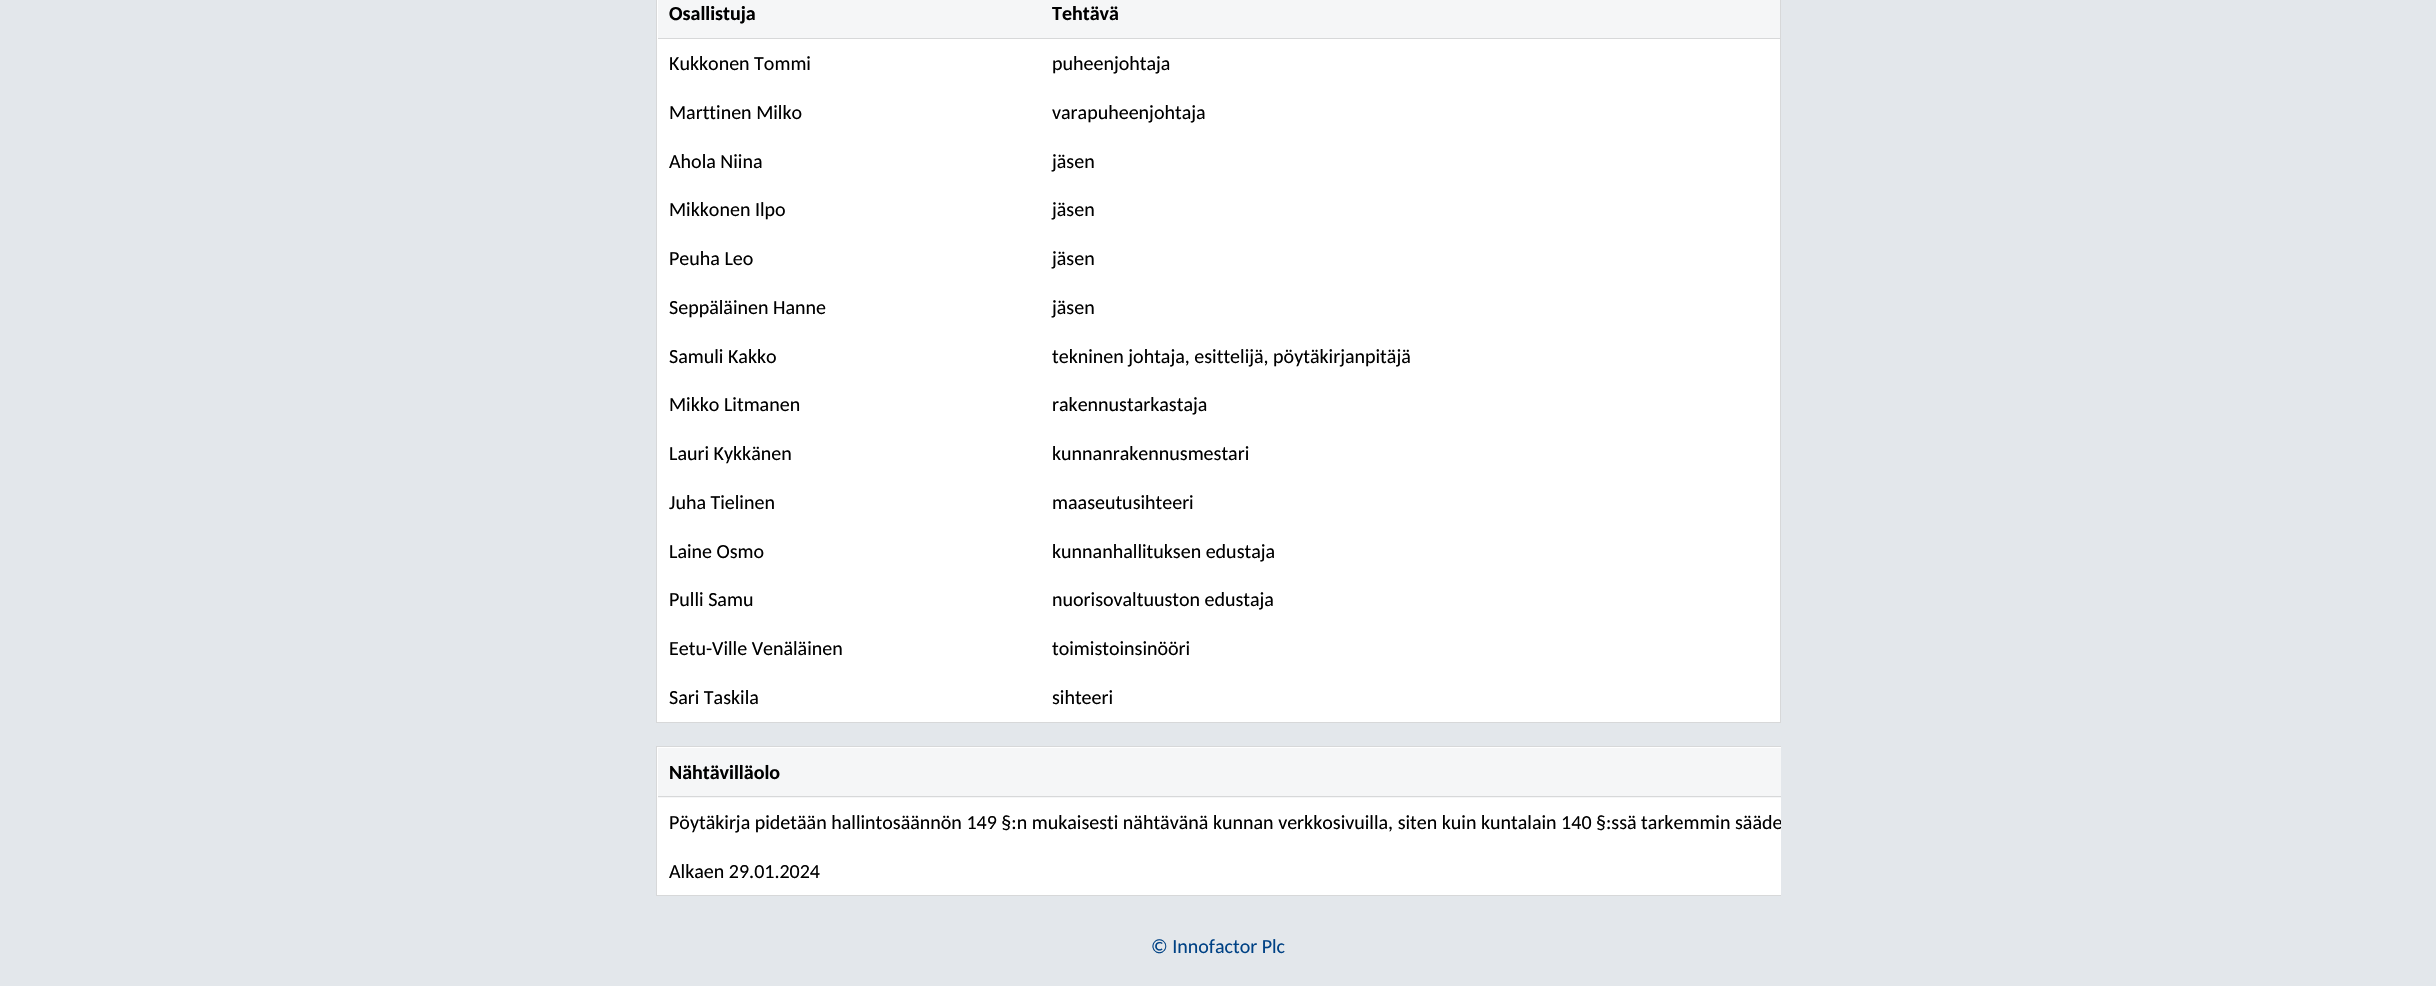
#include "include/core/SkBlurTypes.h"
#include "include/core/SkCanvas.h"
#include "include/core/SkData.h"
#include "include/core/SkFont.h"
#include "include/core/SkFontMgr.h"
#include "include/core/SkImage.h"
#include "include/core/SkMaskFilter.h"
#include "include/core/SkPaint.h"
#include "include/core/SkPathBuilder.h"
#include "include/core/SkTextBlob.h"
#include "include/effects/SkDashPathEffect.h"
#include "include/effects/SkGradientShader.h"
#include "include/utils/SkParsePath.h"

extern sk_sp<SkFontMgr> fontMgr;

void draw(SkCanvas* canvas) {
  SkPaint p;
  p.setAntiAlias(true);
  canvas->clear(SkColorSetRGB(227, 231, 235));
  p.setColor(SK_ColorWHITE);
  canvas->drawRect(SkRect::MakeLTRB(656.5f, -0.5f, 1780.5f, 722.5f), p);
  p.setStyle(SkPaint::kStroke_Style);
  p.setStrokeWidth(1);
  p.setColor(SkColorSetRGB(215, 216, 217));
  canvas->drawRect(SkRect::MakeLTRB(656.5f, -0.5f, 1780.5f, 722.5f), p);
  p.setStyle(SkPaint::kFill_Style);
  p.setColor(SkColorSetRGB(245, 246, 247));
  canvas->drawRect(SkRect::MakeLTRB(658, 0, 1780, 38), p);
  p.setColor(SkColorSetRGB(215, 216, 217));
  canvas->drawRect(SkRect::MakeLTRB(658, 38, 1780, 39), p);
  p.setColor(SK_ColorWHITE);
  canvas->drawRect(SkRect::MakeLTRB(657, 747, 1781, 895), p);
  canvas->save();
  canvas->clipRect(SkRect::MakeLTRB(656, 0, 1781, 896));
  p.setStyle(SkPaint::kStroke_Style);
  p.setColor(SkColorSetRGB(215, 216, 217));
  canvas->drawRect(SkRect::MakeLTRB(656.5f, 746.5f, 1867.5f, 895.5f), p);
  canvas->restore();
  p.setStyle(SkPaint::kFill_Style);
  p.setColor(SkColorSetRGB(245, 246, 247));
  canvas->drawRect(SkRect::MakeLTRB(658, 748, 1781, 798), p);
  p.setColor(SkColorSetRGB(215, 216, 217));
  canvas->drawRect(SkRect::MakeLTRB(658, 796, 1781, 797), p);
  SkFont font1(fontMgr->matchFamilyStyle("Carlito", SkFontStyle::Bold()), 20);
  font1.setSubpixel(true);
  p.setColor(SK_ColorBLACK);
  canvas->drawString("Osallistuja", 669, 20, font1, p);
  canvas->drawString("Tehtävä", 1052, 20, font1, p);
  SkFont font2(fontMgr->matchFamilyStyle("Carlito", SkFontStyle::Normal()), 20);
  font2.setSubpixel(true);
  canvas->drawString("Kukkonen Tommi", 669, 70, font2, p);
  canvas->drawString("puheenjohtaja", 1052, 70, font2, p);
  canvas->drawString("Marttinen Milko", 669, 119, font2, p);
  canvas->drawString("varapuheenjohtaja", 1052, 119, font2, p);
  canvas->drawString("Ahola Niina", 669, 168, font2, p);
  canvas->drawString("jäsen", 1052, 168, font2, p);
  canvas->drawString("Mikkonen Ilpo", 669, 216, font2, p);
  canvas->drawString("jäsen", 1052, 216, font2, p);
  canvas->drawString("Peuha Leo", 669, 265, font2, p);
  canvas->drawString("jäsen", 1052, 265, font2, p);
  canvas->drawString("Seppäläinen Hanne", 669, 314, font2, p);
  canvas->drawString("jäsen", 1052, 314, font2, p);
  canvas->drawString("Samuli Kakko", 669, 363, font2, p);
  canvas->drawString("tekninen johtaja, esittelijä, pöytäkirjanpitäjä", 1052, 363, font2, p);
  canvas->drawString("Mikko Litmanen", 669, 411, font2, p);
  canvas->drawString("rakennustarkastaja", 1052, 411, font2, p);
  canvas->drawString("Lauri Kykkänen", 669, 460, font2, p);
  canvas->drawString("kunnanrakennusmestari", 1052, 460, font2, p);
  canvas->drawString("Juha Tielinen", 669, 509, font2, p);
  canvas->drawString("maaseutusihteeri", 1052, 509, font2, p);
  canvas->drawString("Laine Osmo", 669, 558, font2, p);
  canvas->drawString("kunnanhallituksen edustaja", 1052, 558, font2, p);
  canvas->drawString("Pulli Samu", 669, 606, font2, p);
  canvas->drawString("nuorisovaltuuston edustaja", 1052, 606, font2, p);
  canvas->drawString("Eetu-Ville Venäläinen", 669, 655, font2, p);
  canvas->drawString("toimistoinsinööri", 1052, 655, font2, p);
  canvas->drawString("Sari Taskila", 669, 704, font2, p);
  canvas->drawString("sihteeri", 1052, 704, font2, p);
  canvas->drawString("Nähtävilläolo", 669, 779, font1, p);
  canvas->save();
  canvas->clipRect(SkRect::MakeLTRB(656, 0, 1781, 896));
  canvas->drawString("Pöytäkirja pidetään hallintosäännön 149 §:n mukaisesti nähtävänä kunnan verkkosivuilla, siten kuin kuntalain 140 §:ssä tarkemmin sääde", 669, 829, font2, p);
  canvas->restore();
  canvas->drawString("Alkaen 29.01.2024", 669, 878, font2, p);
  p.setColor(SkColorSetRGB(0, 66, 133));
  canvas->drawString("© Innofactor Plc", 1151, 953, font2, p);
}
